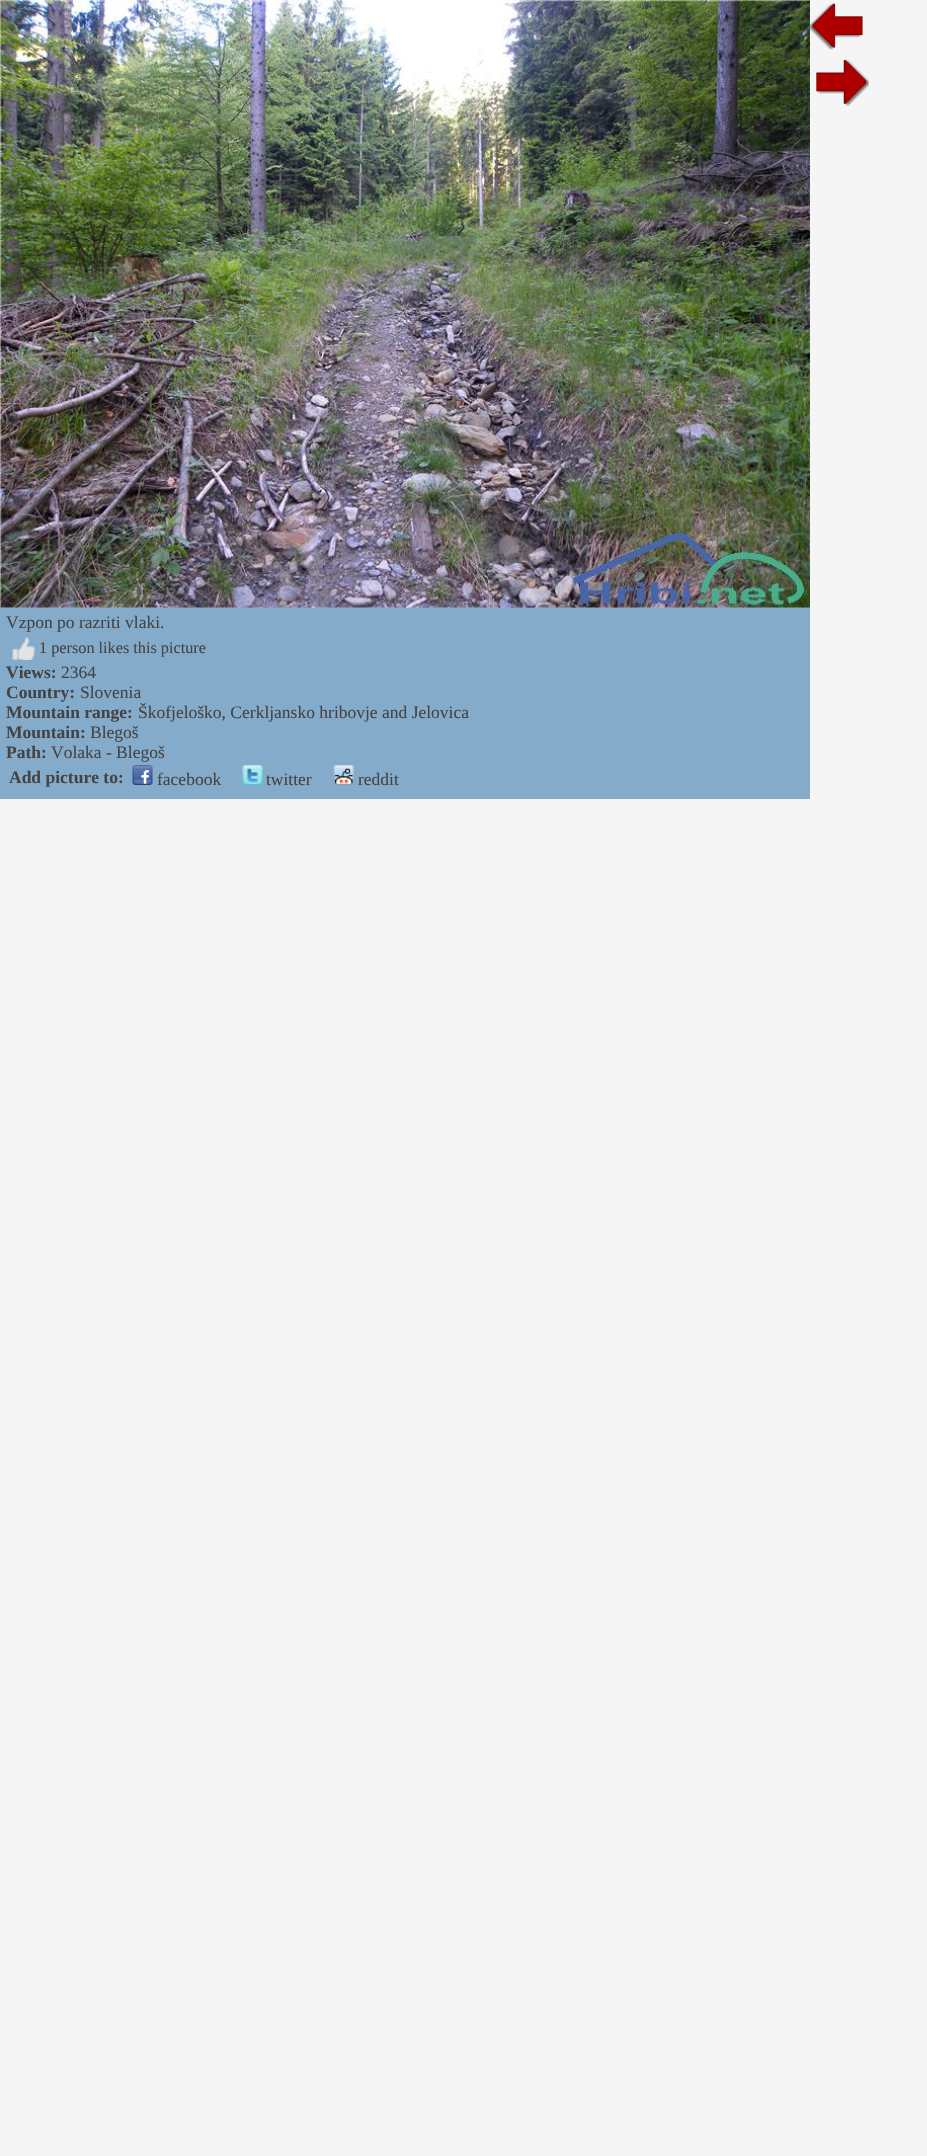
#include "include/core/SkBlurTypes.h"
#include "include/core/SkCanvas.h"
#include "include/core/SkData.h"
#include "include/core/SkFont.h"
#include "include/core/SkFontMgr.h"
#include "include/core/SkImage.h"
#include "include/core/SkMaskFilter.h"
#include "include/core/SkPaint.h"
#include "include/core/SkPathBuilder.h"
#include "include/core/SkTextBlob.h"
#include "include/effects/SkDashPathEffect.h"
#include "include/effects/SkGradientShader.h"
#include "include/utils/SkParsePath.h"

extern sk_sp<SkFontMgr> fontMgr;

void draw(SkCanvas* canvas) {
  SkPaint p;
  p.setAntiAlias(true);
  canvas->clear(SkColorSetRGB(245, 245, 245));
  canvas->drawImageRect(SkImages::DeferredFromEncodedData(SkData::MakeFromFileName("images/1.png")), SkRect::MakeLTRB(810, 3, 863, 50), SkSamplingOptions());
  canvas->drawImageRect(SkImages::DeferredFromEncodedData(SkData::MakeFromFileName("images/2.png")), SkRect::MakeLTRB(816, 59, 869, 107), SkSamplingOptions());
  p.setColor(SkColorSetRGB(133, 171, 202));
  canvas->drawRect(SkRect::MakeLTRB(0, 607, 810, 799), p);
  canvas->drawImageRect(SkImages::DeferredFromEncodedData(SkData::MakeFromFileName("images/3.png")), SkRect::MakeLTRB(0, 0, 810, 608), SkSamplingOptions());
  canvas->drawImageRect(SkImages::DeferredFromEncodedData(SkData::MakeFromFileName("images/4.png")), SkRect::MakeLTRB(12, 637, 35, 660), SkSamplingOptions());
  canvas->drawImageRect(SkImages::DeferredFromEncodedData(SkData::MakeFromFileName("images/5.png")), SkRect::MakeLTRB(132, 765, 153, 785), SkSamplingOptions());
  canvas->drawImageRect(SkImages::DeferredFromEncodedData(SkData::MakeFromFileName("images/6.png")), SkRect::MakeLTRB(242, 765, 263, 785), SkSamplingOptions());
  canvas->drawImageRect(SkImages::DeferredFromEncodedData(SkData::MakeFromFileName("images/7.png")), SkRect::MakeLTRB(333, 765, 354, 785), SkSamplingOptions());
  SkFont font1(fontMgr->matchFamilyStyle("Liberation Serif", SkFontStyle::Normal()), 17.5f);
  font1.setSubpixel(true);
  p.setColor(SkColorSetRGB(68, 68, 68));
  canvas->drawString("Vzpon po razriti vlaki.", 6, 628, font1, p);
  SkFont font2(fontMgr->matchFamilyStyle("Liberation Serif", SkFontStyle::Normal()), 16.25f);
  font2.setSubpixel(true);
  canvas->drawString("1 person likes this picture", 39, 653, font2, p);
  SkFont font3(fontMgr->matchFamilyStyle("Liberation Serif", SkFontStyle::Bold()), 17.5f);
  font3.setSubpixel(true);
  canvas->drawString("Views:", 6, 678, font3, p);
  canvas->drawString("2364", 61, 678, font1, p);
  canvas->drawString("Country:", 6, 698, font3, p);
  canvas->drawString("Slovenia", 80, 698, font1, p);
  canvas->drawString("Mountain range:", 6, 718, font3, p);
  canvas->drawString("Škofjeloško, Cerkljansko hribovje and Jelovica", 138, 718, font1, p);
  canvas->drawString("Mountain:", 6, 738, font3, p);
  canvas->drawString("Blegoš", 90, 738, font1, p);
  canvas->drawString("Path:", 6, 758, font3, p);
  canvas->drawString("Volaka - Blegoš", 51, 758, font1, p);
  canvas->drawString("Add picture to:", 9, 783, font3, p);
  canvas->drawString("facebook", 157, 785, font1, p);
  canvas->drawString("twitter", 266, 785, font1, p);
  canvas->drawString("reddit", 358, 785, font1, p);
}
